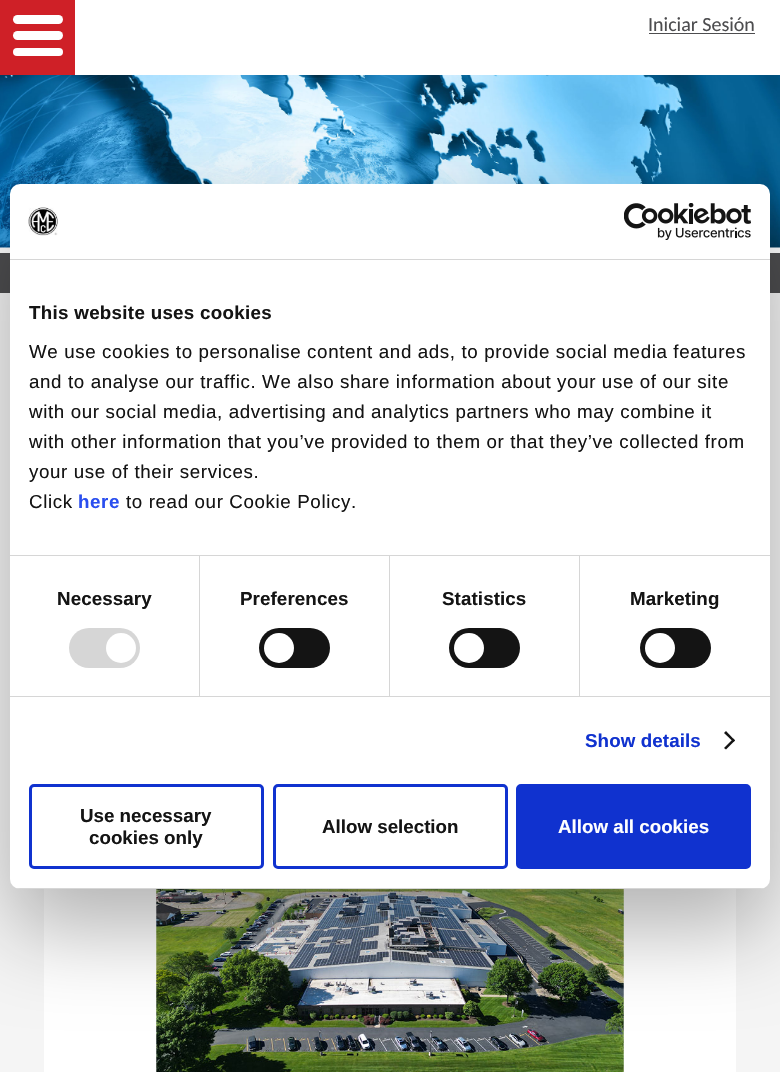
#include "include/core/SkBlurTypes.h"
#include "include/core/SkCanvas.h"
#include "include/core/SkData.h"
#include "include/core/SkFont.h"
#include "include/core/SkFontMgr.h"
#include "include/core/SkImage.h"
#include "include/core/SkMaskFilter.h"
#include "include/core/SkPaint.h"
#include "include/core/SkPathBuilder.h"
#include "include/core/SkTextBlob.h"
#include "include/effects/SkDashPathEffect.h"
#include "include/effects/SkGradientShader.h"
#include "include/utils/SkParsePath.h"

extern sk_sp<SkFontMgr> fontMgr;

void draw(SkCanvas* canvas) {
  SkPaint p;
  p.setAntiAlias(true);
  auto spacedText = [&](const char* s, float x, float y, const SkFont& font, const SkPaint& ink, float letter, float word) {
    std::vector<SkGlyphID> glyphs(font.countText(s, strlen(s), SkTextEncoding::kUTF8));
    std::vector<float> xs(glyphs.size());
    font.textToGlyphs(s, strlen(s), SkTextEncoding::kUTF8, glyphs);
    font.getXPos(glyphs, xs, x);
    float extra = 0;
    for (size_t i = 0; i < glyphs.size(); i++) {
      xs[i] += extra;
      extra += letter + word * (glyphs[i] == font.unicharToGlyph(' '));
    }
    canvas->drawTextBlob(SkTextBlob::MakeFromPosHGlyphs(glyphs, xs, y, font), 0, 0, ink);
  };
  canvas->clear(SK_ColorWHITE);
  p.setColor(SkColorSetRGB(207, 32, 39));
  canvas->drawRect(SkRect::MakeLTRB(0, 0, 75, 75), p);
  p.setColor(SK_ColorWHITE);
  canvas->drawRoundRect(SkRect::MakeLTRB(13, 15, 63, 24), 4.5f, 4.5f, p);
  canvas->drawRoundRect(SkRect::MakeLTRB(13, 31, 63, 40), 4.5f, 4.5f, p);
  canvas->drawRoundRect(SkRect::MakeLTRB(13, 48, 63, 56), 4, 4, p);
  p.setColor(SkColorSetRGB(77, 77, 79));
  canvas->drawRect(SkRect::MakeLTRB(649, 33, 755, 34), p);
  canvas->drawImageRect(SkImages::DeferredFromEncodedData(SkData::MakeFromFileName("images/1.png")), SkRect::MakeLTRB(0, 75, 780, 248), SkSamplingOptions());
  canvas->drawRect(SkRect::MakeLTRB(0, 253, 780, 293), p);
  p.setColor(SkColorSetRGB(245, 245, 245));
  canvas->drawRect(SkRect::MakeLTRB(0, 293, 780, 1072), p);
  p.setColor(SK_ColorWHITE);
  canvas->drawRect(SkRect::MakeLTRB(44, 889, 736, 1072), p);
  canvas->drawImageRect(SkImages::DeferredFromEncodedData(SkData::MakeFromFileName("images/2.png")), SkRect::MakeLTRB(156, 889, 624, 1072), SkSamplingOptions());
  p.setColor(SkColorSetARGB(77, 0, 0, 0));
  p.setMaskFilter(SkMaskFilter::MakeBlur(kNormal_SkBlurStyle, 42.5f));
  canvas->drawRoundRect(SkRect::MakeLTRB(10, 224, 770, 929), 10, 10, p);
  p.setMaskFilter(nullptr);
  p.setColor(SK_ColorWHITE);
  canvas->drawRoundRect(SkRect::MakeLTRB(10, 184, 770, 889), 10, 10, p);
  p.setColor(SkColorSetRGB(214, 214, 214));
  canvas->drawRect(SkRect::MakeLTRB(10, 259, 770, 260), p);
  canvas->drawImageRect(SkImages::DeferredFromEncodedData(SkData::MakeFromFileName("images/3.png")), SkRect::MakeLTRB(28, 207, 58, 236), SkSamplingOptions());
  canvas->drawImageRect(SkImages::DeferredFromEncodedData(SkData::MakeFromFileName("images/4.png")), SkRect::MakeLTRB(624, 203, 751, 240), SkSamplingOptions());
  canvas->drawRect(SkRect::MakeLTRB(10, 555, 770, 556), p);
  canvas->drawRect(SkRect::MakeLTRB(10, 696, 770, 697), p);
  canvas->drawRect(SkRect::MakeLTRB(199, 556, 200, 696), p);
  canvas->drawRoundRect(SkRect::MakeLTRB(69, 628, 140, 668), 20, 20, p);
  p.setColor(SK_ColorWHITE);
  canvas->drawCircle(121, 648, 15, p);
  p.setColor(SkColorSetRGB(214, 214, 214));
  canvas->drawRect(SkRect::MakeLTRB(389, 556, 390, 696), p);
  p.setColor(SkColorSetRGB(20, 20, 20));
  canvas->drawRoundRect(SkRect::MakeLTRB(259, 628, 330, 668), 20, 20, p);
  p.setColor(SK_ColorWHITE);
  canvas->drawCircle(279, 648, 15, p);
  p.setColor(SkColorSetRGB(214, 214, 214));
  canvas->drawRect(SkRect::MakeLTRB(579, 556, 580, 696), p);
  p.setColor(SkColorSetRGB(20, 20, 20));
  canvas->drawRoundRect(SkRect::MakeLTRB(449, 628, 520, 668), 20, 20, p);
  p.setColor(SK_ColorWHITE);
  canvas->drawCircle(469, 648, 15, p);
  p.setColor(SkColorSetRGB(20, 20, 20));
  canvas->drawRoundRect(SkRect::MakeLTRB(640, 628, 711, 668), 20, 20, p);
  p.setColor(SK_ColorWHITE);
  canvas->drawCircle(660, 648, 15, p);
  p.setColor(SkColorSetRGB(20, 20, 20));
  canvas->drawPath(SkPathBuilder().moveTo(726, 731).lineTo(735, 740.5f).lineTo(733.5f, 742).lineTo(724, 733).close().detach(), p);
  canvas->drawPath(SkPathBuilder().moveTo(733.5f, 738.5f).lineTo(735, 740.5f).lineTo(726, 749.5f).lineTo(724, 748).close().detach(), p);
  canvas->save();
  canvas->clipPath(SkPathBuilder().moveTo(20, 184).lineTo(760, 184).cubicTo(765.5f, 184, 770, 188.5f, 770, 194).lineTo(770, 879).cubicTo(770, 884.5f, 765.5f, 889, 760, 889).lineTo(20, 889).cubicTo(14.5f, 889, 10, 884.5f, 10, 879).lineTo(10, 194).cubicTo(10, 188.5f, 14.5f, 184, 20, 184).close().detach(), true);
  p.setColor(SkColorSetRGB(214, 214, 214));
  canvas->drawRect(SkRect::MakeLTRB(10, 888, 770, 889), p);
  canvas->restore();
  p.setStyle(SkPaint::kStroke_Style);
  p.setStrokeWidth(3);
  p.setColor(SkColorSetRGB(16, 50, 207));
  canvas->drawRoundRect(SkRect::MakeLTRB(30.5f, 785.5f, 262.5f, 867.5f), 3.5f, 3.5f, p);
  canvas->drawRoundRect(SkRect::MakeLTRB(274.5f, 785.5f, 506.5f, 867.5f), 3.5f, 3.5f, p);
  p.setStyle(SkPaint::kFill_Style);
  canvas->drawRoundRect(SkRect::MakeLTRB(517.5f, 785.5f, 749.5f, 867.5f), 3.5f, 3.5f, p);
  p.setStyle(SkPaint::kStroke_Style);
  canvas->drawRoundRect(SkRect::MakeLTRB(517.5f, 785.5f, 749.5f, 867.5f), 3.5f, 3.5f, p);
  SkFont font1(fontMgr->matchFamilyStyle("Carlito", SkFontStyle::Normal()), 20);
  font1.setSubpixel(true);
  p.setStyle(SkPaint::kFill_Style);
  p.setColor(SkColorSetRGB(77, 77, 79));
  canvas->drawString("Iniciar Sesión", 648, 31, font1, p);
  SkFont font2(fontMgr->matchFamilyStyle("Liberation Sans", SkFontStyle::Bold()), 18.75f);
  font2.setSubpixel(true);
  p.setColor(SkColorSetRGB(20, 20, 20));
  spacedText("This website uses cookies", 29, 319, font2, p, 0.3f, 0);
  SkFont font3(fontMgr->matchFamilyStyle("Liberation Sans", SkFontStyle::Normal()), 18.75f);
  font3.setSubpixel(true);
  spacedText("We use cookies to personalise content and ads, to provide social media features", 29, 358, font3, p, 0.62f, 0);
  spacedText("and to analyse our traffic. We also share information about your use of our site", 29, 388, font3, p, 0.62f, 0);
  spacedText("with our social media, advertising and analytics partners who may combine it", 29, 418, font3, p, 0.62f, 0);
  spacedText("with other information that you’ve provided to them or that they’ve collected from", 29, 448, font3, p, 0.62f, 0);
  spacedText("your use of their services.", 29, 478, font3, p, 0.62f, 0);
  spacedText("Click", 29, 508, font3, p, 0.62f, 0);
  p.setColor(SkColorSetRGB(42, 78, 239));
  spacedText("here", 78, 508, font2, p, 0.62f, 0);
  p.setColor(SkColorSetRGB(20, 20, 20));
  spacedText("to read our Cookie Policy.", 126, 508, font3, p, 0.62f, 0);
  spacedText("Necessary", 57, 605, font2, p, 0.1f, 0);
  spacedText("Preferences", 240, 605, font2, p, 0.1f, 0);
  spacedText("Statistics", 442, 605, font2, p, 0.1f, 0);
  spacedText("Marketing", 630, 605, font2, p, 0.1f, 0);
  p.setColor(SkColorSetRGB(16, 50, 207));
  spacedText("Show details", 585, 747, font2, p, 0.1f, 0);
  p.setColor(SkColorSetRGB(20, 20, 20));
  canvas->drawString("Use necessary", 80, 822, font2, p);
  canvas->drawString("cookies only", 89, 844, font2, p);
  canvas->drawString("Allow selection", 322, 833, font2, p);
  p.setColor(SK_ColorWHITE);
  canvas->drawString("Allow all cookies", 558, 833, font2, p);
}
